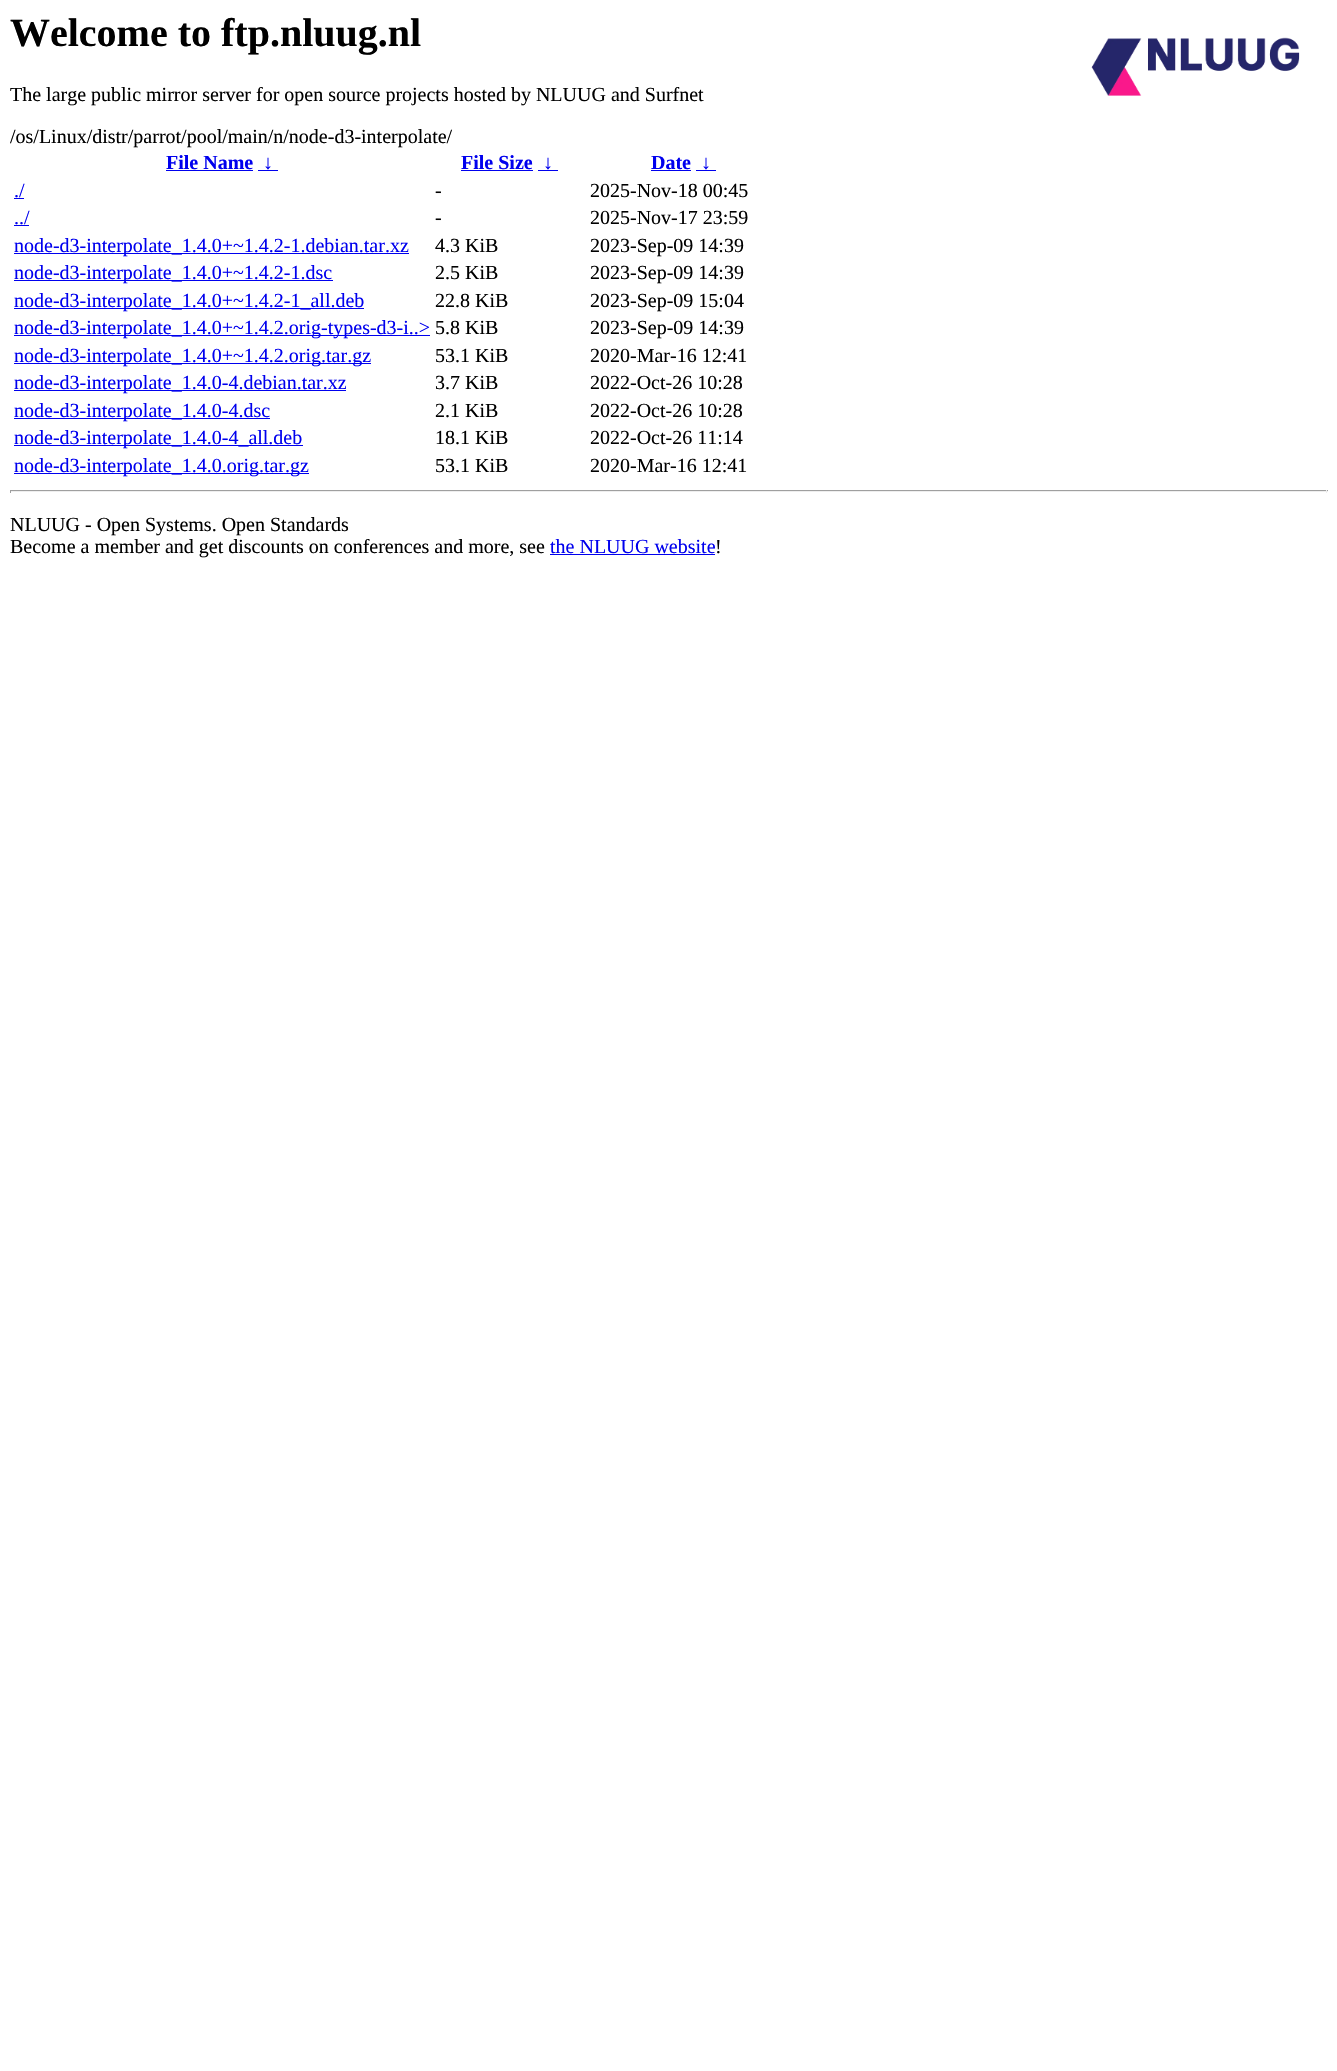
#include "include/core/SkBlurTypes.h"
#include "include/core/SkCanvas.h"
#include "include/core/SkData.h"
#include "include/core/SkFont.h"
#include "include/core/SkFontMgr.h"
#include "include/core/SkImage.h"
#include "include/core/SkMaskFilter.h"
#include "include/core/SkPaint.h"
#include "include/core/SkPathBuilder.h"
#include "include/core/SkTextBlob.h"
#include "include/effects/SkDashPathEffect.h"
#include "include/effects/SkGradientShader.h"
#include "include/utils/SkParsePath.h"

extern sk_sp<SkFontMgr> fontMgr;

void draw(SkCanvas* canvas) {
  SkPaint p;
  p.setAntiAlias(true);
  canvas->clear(SK_ColorWHITE);
  canvas->drawImageRect(SkImages::DeferredFromEncodedData(SkData::MakeFromFileName("images/1.png")), SkRect::MakeLTRB(1091, 37, 1300, 96), SkSamplingOptions());
  p.setColor(SkColorSetRGB(0, 0, 238));
  canvas->drawRect(SkRect::MakeLTRB(166, 170, 253, 171), p);
  canvas->drawRect(SkRect::MakeLTRB(258, 170, 278, 171), p);
  canvas->drawRect(SkRect::MakeLTRB(461, 170, 533, 171), p);
  canvas->drawRect(SkRect::MakeLTRB(538, 170, 558, 171), p);
  canvas->drawRect(SkRect::MakeLTRB(651, 170, 691, 171), p);
  canvas->drawRect(SkRect::MakeLTRB(696, 170, 716, 171), p);
  canvas->drawRect(SkRect::MakeLTRB(14, 198, 24, 199), p);
  canvas->drawRect(SkRect::MakeLTRB(14, 225, 29, 226), p);
  canvas->drawRect(SkRect::MakeLTRB(14, 253, 409, 254), p);
  canvas->drawRect(SkRect::MakeLTRB(14, 280, 333, 281), p);
  canvas->drawRect(SkRect::MakeLTRB(14, 308, 364, 309), p);
  canvas->drawRect(SkRect::MakeLTRB(14, 335, 430, 336), p);
  canvas->drawRect(SkRect::MakeLTRB(14, 363, 371, 364), p);
  canvas->drawRect(SkRect::MakeLTRB(14, 390, 346, 391), p);
  canvas->drawRect(SkRect::MakeLTRB(14, 418, 270, 419), p);
  canvas->drawRect(SkRect::MakeLTRB(14, 445, 303, 446), p);
  canvas->drawRect(SkRect::MakeLTRB(14, 473, 309, 474), p);
  p.setColor(SkColorSetRGB(159, 159, 159));
  canvas->drawRect(SkRect::MakeLTRB(10, 490, 1328, 491), p);
  p.setColor(SkColorSetRGB(238, 238, 238));
  canvas->drawRect(SkRect::MakeLTRB(1326, 490, 1327, 493), p);
  canvas->drawRect(SkRect::MakeLTRB(10, 491, 1328, 492), p);
  p.setColor(SkColorSetRGB(159, 159, 159));
  canvas->drawRect(SkRect::MakeLTRB(10, 490, 11, 493), p);
  p.setColor(SkColorSetRGB(0, 0, 238));
  canvas->drawRect(SkRect::MakeLTRB(550, 554, 715, 555), p);
  SkFont font1(fontMgr->matchFamilyStyle("Liberation Serif", SkFontStyle::Bold()), 40);
  font1.setSubpixel(true);
  p.setColor(SK_ColorBLACK);
  canvas->drawString("Welcome to ftp.nluug.nl", 10, 46, font1, p);
  SkFont font2(fontMgr->matchFamilyStyle("Liberation Serif", SkFontStyle::Normal()), 20);
  font2.setSubpixel(true);
  canvas->drawString("The large public mirror server for open source projects hosted by NLUUG and Surfnet", 10, 101, font2, p);
  canvas->drawString("/os/Linux/distr/parrot/pool/main/n/node-d3-interpolate/", 10, 143, font2, p);
  SkFont font3(fontMgr->matchFamilyStyle("Liberation Serif", SkFontStyle::Bold()), 20);
  font3.setSubpixel(true);
  p.setColor(SkColorSetRGB(0, 0, 238));
  canvas->drawString("File Name", 166, 169, font3, p);
  canvas->drawString("↓", 263, 169, font3, p);
  canvas->drawString("File Size", 461, 169, font3, p);
  canvas->drawString("↓", 543, 169, font3, p);
  canvas->drawString("Date", 651, 169, font3, p);
  canvas->drawString("↓", 701, 169, font3, p);
  canvas->drawString("./", 14, 197, font2, p);
  p.setColor(SK_ColorBLACK);
  canvas->drawString("-", 435, 197, font2, p);
  canvas->drawString("2025-Nov-18 00:45", 590, 197, font2, p);
  p.setColor(SkColorSetRGB(0, 0, 238));
  canvas->drawString("../", 14, 224, font2, p);
  p.setColor(SK_ColorBLACK);
  canvas->drawString("-", 435, 224, font2, p);
  canvas->drawString("2025-Nov-17 23:59", 590, 224, font2, p);
  p.setColor(SkColorSetRGB(0, 0, 238));
  canvas->drawString("node-d3-interpolate_1.4.0+~1.4.2-1.debian.tar.xz", 14, 252, font2, p);
  p.setColor(SK_ColorBLACK);
  canvas->drawString("4.3 KiB", 435, 252, font2, p);
  canvas->drawString("2023-Sep-09 14:39", 590, 252, font2, p);
  p.setColor(SkColorSetRGB(0, 0, 238));
  canvas->drawString("node-d3-interpolate_1.4.0+~1.4.2-1.dsc", 14, 279, font2, p);
  p.setColor(SK_ColorBLACK);
  canvas->drawString("2.5 KiB", 435, 279, font2, p);
  canvas->drawString("2023-Sep-09 14:39", 590, 279, font2, p);
  p.setColor(SkColorSetRGB(0, 0, 238));
  canvas->drawString("node-d3-interpolate_1.4.0+~1.4.2-1_all.deb", 14, 307, font2, p);
  p.setColor(SK_ColorBLACK);
  canvas->drawString("22.8 KiB", 435, 307, font2, p);
  canvas->drawString("2023-Sep-09 15:04", 590, 307, font2, p);
  p.setColor(SkColorSetRGB(0, 0, 238));
  canvas->drawString("node-d3-interpolate_1.4.0+~1.4.2.orig-types-d3-i..>", 14, 334, font2, p);
  p.setColor(SK_ColorBLACK);
  canvas->drawString("5.8 KiB", 435, 334, font2, p);
  canvas->drawString("2023-Sep-09 14:39", 590, 334, font2, p);
  p.setColor(SkColorSetRGB(0, 0, 238));
  canvas->drawString("node-d3-interpolate_1.4.0+~1.4.2.orig.tar.gz", 14, 362, font2, p);
  p.setColor(SK_ColorBLACK);
  canvas->drawString("53.1 KiB", 435, 362, font2, p);
  canvas->drawString("2020-Mar-16 12:41", 590, 362, font2, p);
  p.setColor(SkColorSetRGB(0, 0, 238));
  canvas->drawString("node-d3-interpolate_1.4.0-4.debian.tar.xz", 14, 389, font2, p);
  p.setColor(SK_ColorBLACK);
  canvas->drawString("3.7 KiB", 435, 389, font2, p);
  canvas->drawString("2022-Oct-26 10:28", 590, 389, font2, p);
  p.setColor(SkColorSetRGB(0, 0, 238));
  canvas->drawString("node-d3-interpolate_1.4.0-4.dsc", 14, 417, font2, p);
  p.setColor(SK_ColorBLACK);
  canvas->drawString("2.1 KiB", 435, 417, font2, p);
  canvas->drawString("2022-Oct-26 10:28", 590, 417, font2, p);
  p.setColor(SkColorSetRGB(0, 0, 238));
  canvas->drawString("node-d3-interpolate_1.4.0-4_all.deb", 14, 444, font2, p);
  p.setColor(SK_ColorBLACK);
  canvas->drawString("18.1 KiB", 435, 444, font2, p);
  canvas->drawString("2022-Oct-26 11:14", 590, 444, font2, p);
  p.setColor(SkColorSetRGB(0, 0, 238));
  canvas->drawString("node-d3-interpolate_1.4.0.orig.tar.gz", 14, 472, font2, p);
  p.setColor(SK_ColorBLACK);
  canvas->drawString("53.1 KiB", 435, 472, font2, p);
  canvas->drawString("2020-Mar-16 12:41", 590, 472, font2, p);
  canvas->drawString("NLUUG - Open Systems. Open Standards", 10, 531, font2, p);
  canvas->drawString("Become a member and get discounts on conferences and more, see", 10, 553, font2, p);
  p.setColor(SkColorSetRGB(0, 0, 238));
  canvas->drawString("the NLUUG website", 550, 553, font2, p);
  p.setColor(SK_ColorBLACK);
  canvas->drawString("!", 715, 553, font2, p);
}
